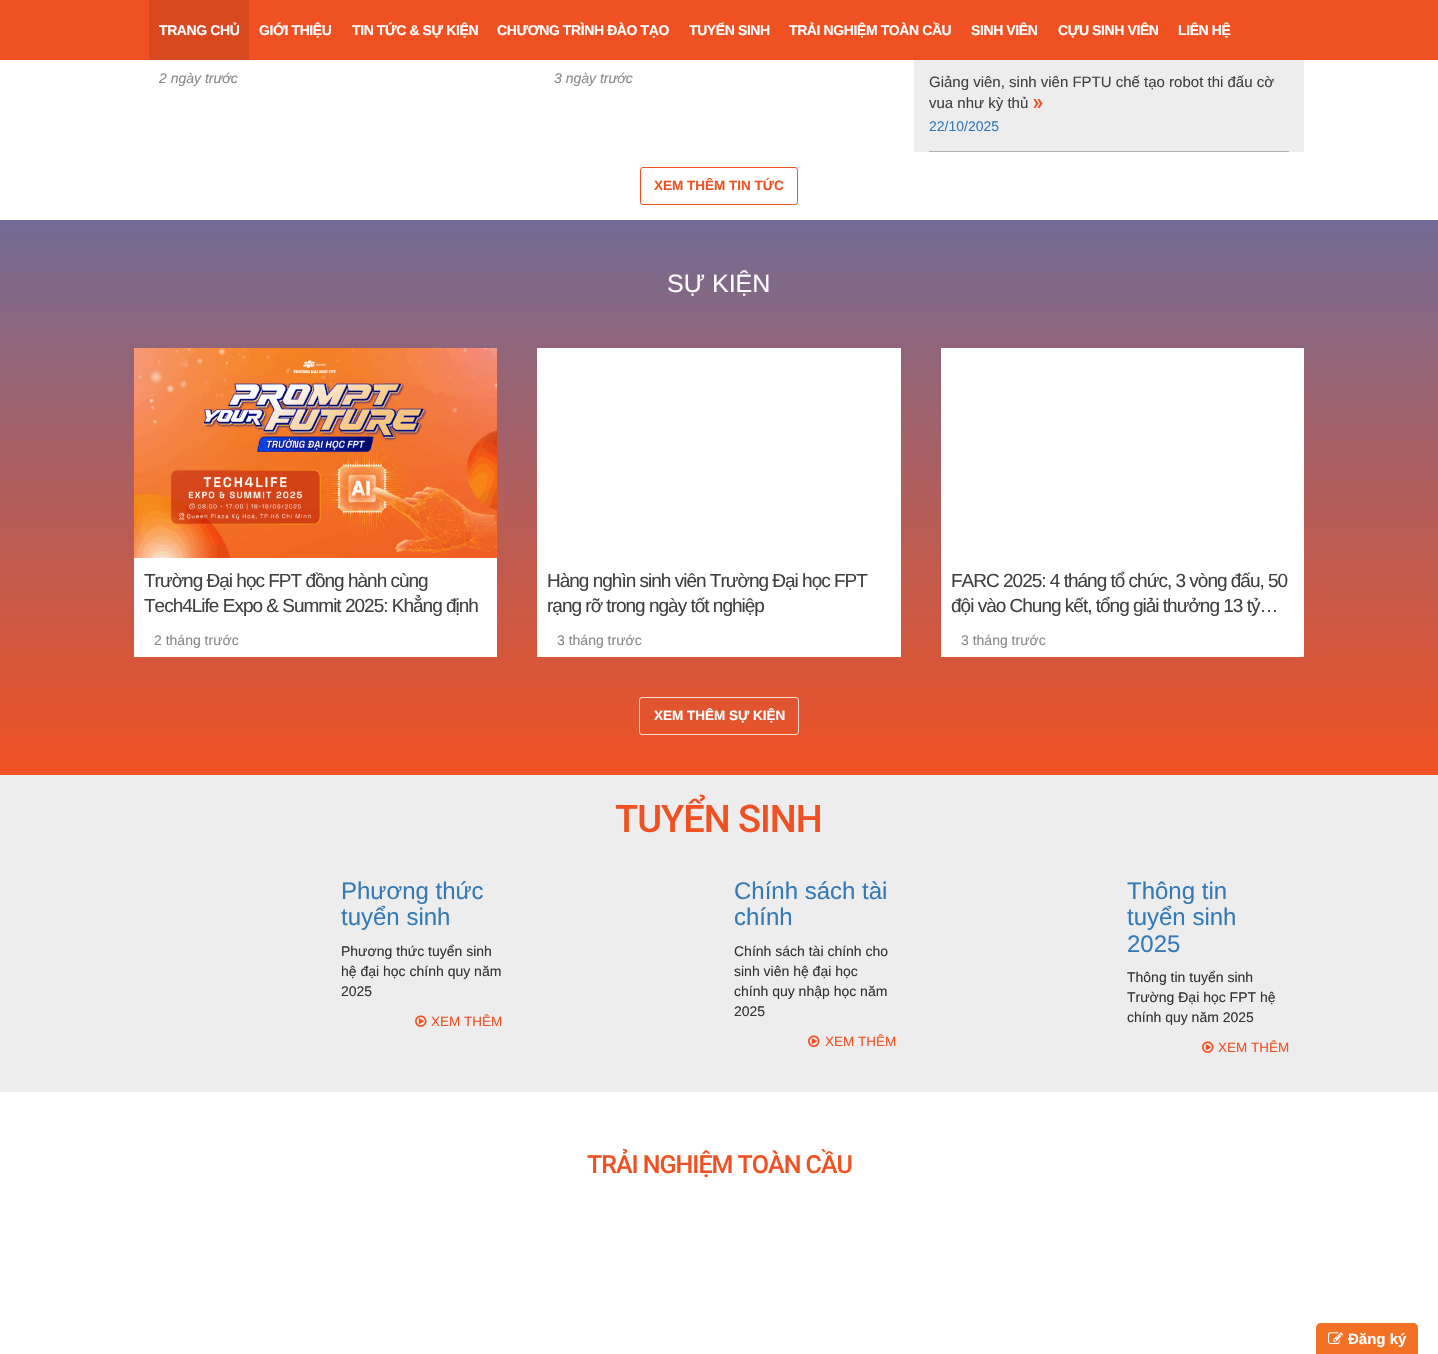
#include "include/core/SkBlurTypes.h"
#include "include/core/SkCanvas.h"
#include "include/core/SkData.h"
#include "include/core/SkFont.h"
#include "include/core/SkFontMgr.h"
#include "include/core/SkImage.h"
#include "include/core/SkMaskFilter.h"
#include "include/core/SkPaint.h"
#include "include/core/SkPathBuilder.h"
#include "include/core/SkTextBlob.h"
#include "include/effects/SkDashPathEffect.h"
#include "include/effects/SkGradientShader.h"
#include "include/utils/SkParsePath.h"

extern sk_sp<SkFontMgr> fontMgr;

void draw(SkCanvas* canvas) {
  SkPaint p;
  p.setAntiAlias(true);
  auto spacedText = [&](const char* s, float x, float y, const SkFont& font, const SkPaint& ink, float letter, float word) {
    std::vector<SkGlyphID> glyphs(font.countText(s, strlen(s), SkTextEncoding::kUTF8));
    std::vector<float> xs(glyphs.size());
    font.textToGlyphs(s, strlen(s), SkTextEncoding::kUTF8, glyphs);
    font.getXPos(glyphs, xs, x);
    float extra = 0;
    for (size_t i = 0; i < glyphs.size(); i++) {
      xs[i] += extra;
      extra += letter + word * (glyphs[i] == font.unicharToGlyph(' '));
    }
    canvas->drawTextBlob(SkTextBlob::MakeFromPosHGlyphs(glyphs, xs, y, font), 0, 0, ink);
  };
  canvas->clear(SK_ColorWHITE);
  p.setColor(SkColorSetRGB(240, 81, 35));
  canvas->drawRect(SkRect::MakeLTRB(0, 0, 1438, 60), p);
  p.setColor(SkColorSetRGB(216, 73, 32));
  canvas->drawRect(SkRect::MakeLTRB(149, 0, 249, 60), p);
  p.setColor(SkColorSetRGB(237, 237, 237));
  canvas->drawRect(SkRect::MakeLTRB(914, 60, 1304, 152), p);
  p.setColor(SkColorSetRGB(178, 178, 178));
  canvas->drawRect(SkRect::MakeLTRB(929, 151, 1289, 152), p);
  canvas->drawImageRect(SkImages::DeferredFromEncodedData(SkData::MakeFromFileName("images/1.png")), SkRect::MakeLTRB(1033, 99, 1043, 108), SkSamplingOptions());
  p.setStyle(SkPaint::kStroke_Style);
  p.setStrokeWidth(1);
  p.setColor(SkColorSetRGB(240, 81, 35));
  canvas->drawRoundRect(SkRect::MakeLTRB(640.5f, 167.5f, 797.5f, 204.5f), 2.5f, 2.5f, p);
  p.setStyle(SkPaint::kFill_Style);
  {
    const SkColor colors[] = {SkColorSetRGB(115, 107, 149), SkColorSetRGB(240, 81, 34)};
    const float stops[] = {0, 1};
    const SkPoint ends[] = {{719, 220}, {719, 775}};
    p.setShader(SkGradientShader::MakeLinear(ends, colors, stops, 2, SkTileMode::kClamp));
    p.setAlpha(255);
  }
  canvas->drawRect(SkRect::MakeLTRB(0, 220, 1438, 775), p);
  canvas->drawImageRect(SkImages::DeferredFromEncodedData(SkData::MakeFromFileName("images/2.png")), SkRect::MakeLTRB(134, 348, 497, 558), SkSamplingOptions());
  p.setShader(nullptr);
  p.setColor(SK_ColorWHITE);
  canvas->drawRect(SkRect::MakeLTRB(134, 558, 497, 657), p);
  canvas->drawRect(SkRect::MakeLTRB(537, 348, 901, 657), p);
  canvas->drawRect(SkRect::MakeLTRB(941, 348, 1304, 657), p);
  p.setStyle(SkPaint::kStroke_Style);
  p.setColor(SkColorSetARGB(204, 255, 255, 255));
  canvas->drawRoundRect(SkRect::MakeLTRB(639.5f, 697.5f, 798.5f, 734.5f), 2.5f, 2.5f, p);
  p.setStyle(SkPaint::kFill_Style);
  p.setColor(SkColorSetRGB(237, 237, 237));
  canvas->drawRect(SkRect::MakeLTRB(0, 775, 1438, 1092), p);
  canvas->drawImageRect(SkImages::DeferredFromEncodedData(SkData::MakeFromFileName("images/3.png")), SkRect::MakeLTRB(415, 1015, 427, 1027), SkSamplingOptions());
  canvas->drawImageRect(SkImages::DeferredFromEncodedData(SkData::MakeFromFileName("images/3.png")), SkRect::MakeLTRB(808, 1035, 820, 1047), SkSamplingOptions());
  canvas->drawImageRect(SkImages::DeferredFromEncodedData(SkData::MakeFromFileName("images/3.png")), SkRect::MakeLTRB(1202, 1041, 1214, 1053), SkSamplingOptions());
  p.setColor(SkColorSetRGB(243, 113, 37));
  canvas->drawPath(SkPathBuilder().moveTo(1321, 1323).lineTo(1413, 1323).cubicTo(1416, 1323, 1418, 1325, 1418, 1328).lineTo(1418, 1354).lineTo(1316, 1354).lineTo(1316, 1328).cubicTo(1316, 1325, 1318, 1323, 1321, 1323).close().detach(), p);
  canvas->drawImageRect(SkImages::DeferredFromEncodedData(SkData::MakeFromFileName("images/4.png")), SkRect::MakeLTRB(1328, 1332, 1343, 1344), SkSamplingOptions());
  SkFont font1(fontMgr->matchFamilyStyle("Liberation Sans", SkFontStyle::Bold()), 14);
  font1.setSubpixel(true);
  p.setColor(SK_ColorWHITE);
  spacedText("TRANG CHỦ", 159, 35, font1, p, -0.4f, 0);
  spacedText("GIỚI THIỆU", 259, 35, font1, p, -0.4f, 0);
  spacedText("TIN TỨC & SỰ KIỆN", 352, 35, font1, p, -0.4f, 0);
  spacedText("CHƯƠNG TRÌNH ĐÀO TẠO", 497, 35, font1, p, -0.4f, 0);
  spacedText("TUYỂN SINH", 689, 35, font1, p, -0.4f, 0);
  spacedText("TRẢI NGHIỆM TOÀN CẦU", 789, 35, font1, p, -0.4f, 0);
  spacedText("SINH VIÊN", 971, 35, font1, p, -0.4f, 0);
  spacedText("CỰU SINH VIÊN", 1058, 35, font1, p, -0.4f, 0);
  spacedText("LIÊN HỆ", 1178, 35, font1, p, -0.4f, 0);
  SkFont font2(fontMgr->matchFamilyStyle("Liberation Sans", SkFontStyle::Italic()), 14);
  font2.setSubpixel(true);
  p.setColor(SkColorSetRGB(136, 136, 136));
  canvas->drawString("2 ngày trước", 159, 83, font2, p);
  canvas->drawString("3 ngày trước", 554, 83, font2, p);
  SkFont font3(fontMgr->matchFamilyStyle("Liberation Sans", SkFontStyle::Normal()), 15);
  font3.setSubpixel(true);
  p.setColor(SkColorSetRGB(64, 64, 64));
  canvas->drawString("Giảng viên, sinh viên FPTU chế tạo robot thi đấu cờ", 929, 87, font3, p);
  canvas->drawString("vua như kỳ thủ", 929, 108, font3, p);
  SkFont font4(fontMgr->matchFamilyStyle("Liberation Sans", SkFontStyle::Normal()), 14);
  font4.setSubpixel(true);
  p.setColor(SkColorSetRGB(51, 122, 183));
  canvas->drawString("22/10/2025", 929, 131, font4, p);
  SkFont font5(fontMgr->matchFamilyStyle("Liberation Sans", SkFontStyle::Bold()), 13.5f);
  font5.setSubpixel(true);
  p.setColor(SkColorSetRGB(240, 81, 35));
  canvas->drawString("XEM THÊM TIN TỨC", 654, 190, font5, p);
  SkFont font6(fontMgr->matchFamilyStyle("Liberation Sans", SkFontStyle::Normal()), 25);
  font6.setSubpixel(true);
  p.setColor(SK_ColorWHITE);
  canvas->drawString("SỰ KIỆN", 667, 292, font6, p);
  SkFont font7(fontMgr->matchFamilyStyle("Liberation Sans", SkFontStyle::Normal()), 19);
  font7.setSubpixel(true);
  p.setColor(SkColorSetRGB(64, 64, 64));
  spacedText("Trường Đại học FPT đồng hành cùng", 144, 587, font7, p, -1, 0);
  spacedText("Tech4Life Expo & Summit 2025: Khẳng định", 144, 612, font7, p, -1, 0);
  p.setColor(SkColorSetRGB(136, 136, 136));
  canvas->drawString("2 tháng trước", 154, 645, font4, p);
  p.setColor(SkColorSetRGB(64, 64, 64));
  spacedText("Hàng nghìn sinh viên Trường Đại học FPT", 547, 587, font7, p, -1, 0);
  spacedText("rạng rỡ trong ngày tốt nghiệp", 547, 612, font7, p, -1, 0);
  p.setColor(SkColorSetRGB(136, 136, 136));
  canvas->drawString("3 tháng trước", 557, 645, font4, p);
  p.setColor(SkColorSetRGB(64, 64, 64));
  spacedText("FARC 2025: 4 tháng tổ chức, 3 vòng đấu, 50", 951, 587, font7, p, -1, 0);
  spacedText("đội vào Chung kết, tổng giải thưởng 13 tỷ…", 951, 612, font7, p, -1, 0);
  p.setColor(SkColorSetRGB(136, 136, 136));
  canvas->drawString("3 tháng trước", 961, 645, font4, p);
  p.setColor(SK_ColorWHITE);
  canvas->drawString("XEM THÊM SỰ KIỆN", 654, 720, font5, p);
  SkFont font8(fontMgr->matchFamilyStyle("Roboto", SkFontStyle(500, SkFontStyle::kNormal_Width, SkFontStyle::kUpright_Slant)), 38);
  font8.setSubpixel(true);
  p.setColor(SkColorSetRGB(240, 81, 35));
  spacedText("TUYỂN SINH", 615, 832, font8, p, -1, 0);
  SkFont font9(fontMgr->matchFamilyStyle("Liberation Sans", SkFontStyle::Normal()), 24);
  font9.setSubpixel(true);
  p.setColor(SkColorSetRGB(51, 122, 183));
  canvas->drawString("Phương thức", 341, 899, font9, p);
  canvas->drawString("tuyển sinh", 341, 925, font9, p);
  p.setColor(SkColorSetRGB(51, 51, 51));
  canvas->drawString("Phương thức tuyển sinh", 341, 956, font4, p);
  canvas->drawString("hệ đại học chính quy năm", 341, 976, font4, p);
  canvas->drawString("2025", 341, 996, font4, p);
  SkFont font10(fontMgr->matchFamilyStyle("Liberation Sans", SkFontStyle::Normal()), 13.5f);
  font10.setSubpixel(true);
  p.setColor(SkColorSetRGB(240, 81, 35));
  canvas->drawString("XEM THÊM", 431, 1026, font10, p);
  p.setColor(SkColorSetRGB(51, 122, 183));
  canvas->drawString("Chính sách tài", 734, 899, font9, p);
  canvas->drawString("chính", 734, 925, font9, p);
  p.setColor(SkColorSetRGB(51, 51, 51));
  canvas->drawString("Chính sách tài chính cho", 734, 956, font4, p);
  canvas->drawString("sinh viên hệ đại học", 734, 976, font4, p);
  canvas->drawString("chính quy nhập học năm", 734, 996, font4, p);
  canvas->drawString("2025", 734, 1016, font4, p);
  p.setColor(SkColorSetRGB(240, 81, 35));
  canvas->drawString("XEM THÊM", 825, 1046, font10, p);
  p.setColor(SkColorSetRGB(51, 122, 183));
  canvas->drawString("Thông tin", 1127, 899, font9, p);
  canvas->drawString("tuyển sinh", 1127, 925, font9, p);
  canvas->drawString("2025", 1127, 952, font9, p);
  p.setColor(SkColorSetRGB(51, 51, 51));
  canvas->drawString("Thông tin tuyển sinh", 1127, 982, font4, p);
  canvas->drawString("Trường Đại học FPT hệ", 1127, 1002, font4, p);
  canvas->drawString("chính quy năm 2025", 1127, 1022, font4, p);
  p.setColor(SkColorSetRGB(240, 81, 35));
  canvas->drawString("XEM THÊM", 1218, 1052, font10, p);
  SkFont font11(fontMgr->matchFamilyStyle("Roboto", SkFontStyle(500, SkFontStyle::kNormal_Width, SkFontStyle::kUpright_Slant)), 25);
  font11.setSubpixel(true);
  spacedText("TRẢI NGHIỆM TOÀN CẦU", 587, 1173, font11, p, -1, 0);
  SkFont font12(fontMgr->matchFamilyStyle("Liberation Sans", SkFontStyle::Bold()), 15);
  font12.setSubpixel(true);
  p.setColor(SK_ColorWHITE);
  canvas->drawString("Đăng ký", 1348, 1344, font12, p);
}
